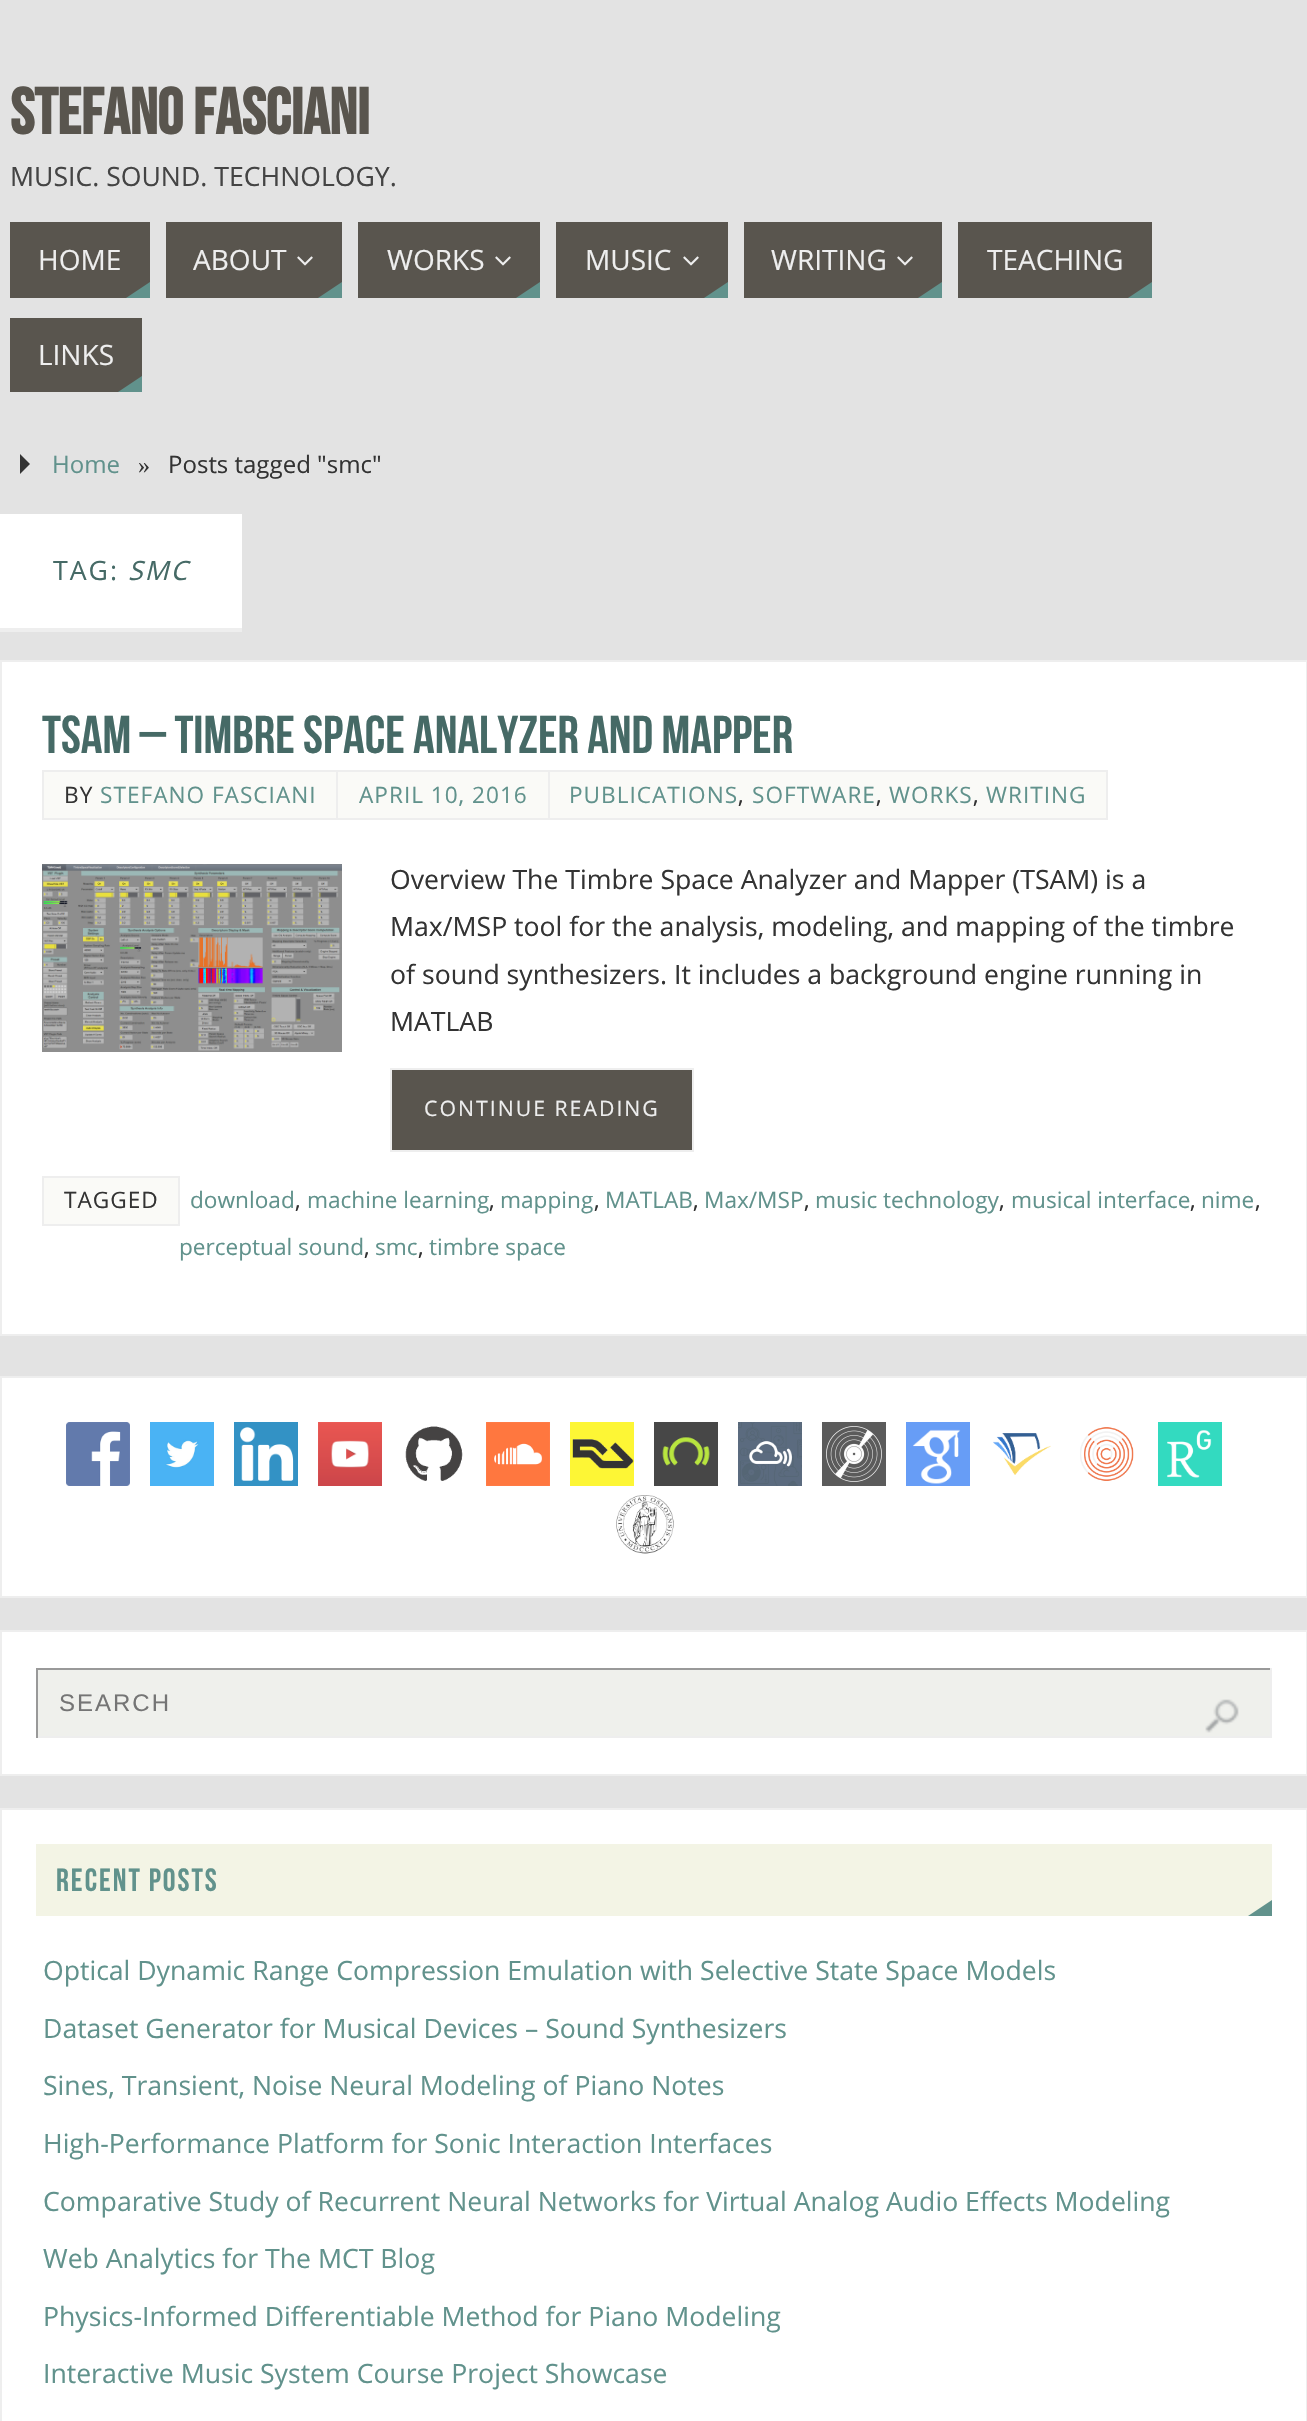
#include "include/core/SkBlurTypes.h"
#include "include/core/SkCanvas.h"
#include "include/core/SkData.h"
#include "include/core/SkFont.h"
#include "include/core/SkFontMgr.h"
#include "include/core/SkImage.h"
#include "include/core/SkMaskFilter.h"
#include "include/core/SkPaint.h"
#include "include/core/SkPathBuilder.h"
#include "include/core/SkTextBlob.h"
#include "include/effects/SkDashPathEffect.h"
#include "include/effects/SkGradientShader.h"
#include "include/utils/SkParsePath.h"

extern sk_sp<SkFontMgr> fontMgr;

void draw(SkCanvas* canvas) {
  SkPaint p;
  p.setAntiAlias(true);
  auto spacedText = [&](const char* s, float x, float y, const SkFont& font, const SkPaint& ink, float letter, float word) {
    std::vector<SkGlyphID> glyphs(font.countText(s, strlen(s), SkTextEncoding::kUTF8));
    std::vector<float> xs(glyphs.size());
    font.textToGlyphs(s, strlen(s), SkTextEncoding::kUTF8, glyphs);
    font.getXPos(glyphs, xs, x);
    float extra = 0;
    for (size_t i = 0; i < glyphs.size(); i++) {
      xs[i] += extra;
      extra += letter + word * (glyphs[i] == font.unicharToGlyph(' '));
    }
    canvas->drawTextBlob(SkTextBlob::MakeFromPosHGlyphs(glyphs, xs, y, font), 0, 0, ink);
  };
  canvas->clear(SkColorSetRGB(227, 227, 227));
  p.setColor(SkColorSetRGB(89, 85, 78));
  canvas->drawRect(SkRect::MakeLTRB(10, 222, 150, 298), p);
  p.setColor(SkColorSetRGB(97, 146, 140));
  canvas->drawPath(SkPathBuilder().moveTo(150, 298).lineTo(126, 298).lineTo(150, 282).close().detach(), p);
  p.setColor(SkColorSetRGB(89, 85, 78));
  canvas->drawRect(SkRect::MakeLTRB(166, 222, 342, 298), p);
  canvas->drawImageRect(SkImages::DeferredFromEncodedData(SkData::MakeFromFileName("images/1.png")), SkRect::MakeLTRB(297, 256, 313, 266), SkSamplingOptions());
  p.setColor(SkColorSetRGB(97, 146, 140));
  canvas->drawPath(SkPathBuilder().moveTo(342, 298).lineTo(318, 298).lineTo(342, 282).close().detach(), p);
  p.setColor(SkColorSetRGB(89, 85, 78));
  canvas->drawRect(SkRect::MakeLTRB(358, 222, 540, 298), p);
  canvas->drawImageRect(SkImages::DeferredFromEncodedData(SkData::MakeFromFileName("images/1.png")), SkRect::MakeLTRB(495, 256, 511, 266), SkSamplingOptions());
  p.setColor(SkColorSetRGB(97, 146, 140));
  canvas->drawPath(SkPathBuilder().moveTo(540, 298).lineTo(516, 298).lineTo(540, 282).close().detach(), p);
  p.setColor(SkColorSetRGB(89, 85, 78));
  canvas->drawRect(SkRect::MakeLTRB(556, 222, 728, 298), p);
  canvas->drawImageRect(SkImages::DeferredFromEncodedData(SkData::MakeFromFileName("images/1.png")), SkRect::MakeLTRB(683, 256, 699, 266), SkSamplingOptions());
  p.setColor(SkColorSetRGB(97, 146, 140));
  canvas->drawPath(SkPathBuilder().moveTo(728, 298).lineTo(704, 298).lineTo(728, 282).close().detach(), p);
  p.setColor(SkColorSetRGB(89, 85, 78));
  canvas->drawRect(SkRect::MakeLTRB(744, 222, 942, 298), p);
  canvas->drawImageRect(SkImages::DeferredFromEncodedData(SkData::MakeFromFileName("images/1.png")), SkRect::MakeLTRB(897, 256, 913, 266), SkSamplingOptions());
  p.setColor(SkColorSetRGB(97, 146, 140));
  canvas->drawPath(SkPathBuilder().moveTo(942, 298).lineTo(918, 298).lineTo(942, 282).close().detach(), p);
  p.setColor(SkColorSetRGB(89, 85, 78));
  canvas->drawRect(SkRect::MakeLTRB(958, 222, 1152, 298), p);
  p.setColor(SkColorSetRGB(97, 146, 140));
  canvas->drawPath(SkPathBuilder().moveTo(1152, 298).lineTo(1128, 298).lineTo(1152, 282).close().detach(), p);
  p.setColor(SkColorSetRGB(89, 85, 78));
  canvas->drawRect(SkRect::MakeLTRB(10, 318, 142, 392), p);
  p.setColor(SkColorSetRGB(97, 146, 140));
  canvas->drawPath(SkPathBuilder().moveTo(142, 392).lineTo(118, 392).lineTo(142, 376).close().detach(), p);
  p.setColor(SkColorSetRGB(51, 51, 51));
  canvas->drawPath(SkPathBuilder().moveTo(20, 474).lineTo(20, 454).lineTo(30, 464).close().detach(), p);
  p.setColor(SK_ColorWHITE);
  canvas->drawRect(SkRect::MakeLTRB(0, 514, 242, 628), p);
  p.setColor(SkColorSetRGB(238, 238, 238));
  canvas->drawRect(SkRect::MakeLTRB(0, 628, 242, 632), p);
  p.setColor(SK_ColorWHITE);
  canvas->drawRect(SkRect::MakeLTRB(1, 661, 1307, 1335), p);
  p.setStyle(SkPaint::kStroke_Style);
  p.setStrokeWidth(2);
  p.setColor(SkColorSetRGB(238, 238, 238));
  canvas->drawRect(SkRect::MakeLTRB(1, 661, 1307, 1335), p);
  p.setStyle(SkPaint::kFill_Style);
  p.setColor(SkColorSetRGB(250, 250, 247));
  canvas->drawRect(SkRect::MakeLTRB(43, 771, 337, 819), p);
  p.setStyle(SkPaint::kStroke_Style);
  p.setColor(SkColorSetRGB(238, 238, 238));
  canvas->drawRect(SkRect::MakeLTRB(43, 771, 337, 819), p);
  p.setStyle(SkPaint::kFill_Style);
  p.setColor(SkColorSetRGB(250, 250, 247));
  canvas->drawRect(SkRect::MakeLTRB(337, 771, 549, 819), p);
  p.setStyle(SkPaint::kStroke_Style);
  p.setColor(SkColorSetRGB(238, 238, 238));
  canvas->drawRect(SkRect::MakeLTRB(337, 771, 549, 819), p);
  p.setStyle(SkPaint::kFill_Style);
  p.setColor(SkColorSetRGB(250, 250, 247));
  canvas->drawRect(SkRect::MakeLTRB(549, 771, 1107, 819), p);
  p.setStyle(SkPaint::kStroke_Style);
  p.setColor(SkColorSetRGB(238, 238, 238));
  canvas->drawRect(SkRect::MakeLTRB(549, 771, 1107, 819), p);
  canvas->drawImageRect(SkImages::DeferredFromEncodedData(SkData::MakeFromFileName("images/2.png")), SkRect::MakeLTRB(42, 864, 342, 1052), SkSamplingOptions());
  p.setStyle(SkPaint::kFill_Style);
  p.setColor(SkColorSetRGB(89, 85, 78));
  canvas->drawRect(SkRect::MakeLTRB(391, 1069, 693, 1151), p);
  p.setStyle(SkPaint::kStroke_Style);
  p.setColor(SkColorSetRGB(238, 238, 238));
  canvas->drawRect(SkRect::MakeLTRB(391, 1069, 693, 1151), p);
  p.setStyle(SkPaint::kFill_Style);
  p.setColor(SkColorSetRGB(250, 250, 247));
  canvas->drawRect(SkRect::MakeLTRB(43, 1177, 179, 1225), p);
  p.setStyle(SkPaint::kStroke_Style);
  p.setColor(SkColorSetRGB(238, 238, 238));
  canvas->drawRect(SkRect::MakeLTRB(43, 1177, 179, 1225), p);
  p.setStyle(SkPaint::kFill_Style);
  p.setColor(SK_ColorWHITE);
  canvas->drawRect(SkRect::MakeLTRB(1, 1377, 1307, 1597), p);
  p.setStyle(SkPaint::kStroke_Style);
  p.setColor(SkColorSetRGB(238, 238, 238));
  canvas->drawRect(SkRect::MakeLTRB(1, 1377, 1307, 1597), p);
  canvas->drawImageRect(SkImages::DeferredFromEncodedData(SkData::MakeFromFileName("images/3.png")), SkRect::MakeLTRB(66, 1422, 130, 1486), SkSamplingOptions());
  canvas->drawImageRect(SkImages::DeferredFromEncodedData(SkData::MakeFromFileName("images/4.png")), SkRect::MakeLTRB(150, 1422, 214, 1486), SkSamplingOptions());
  canvas->drawImageRect(SkImages::DeferredFromEncodedData(SkData::MakeFromFileName("images/5.png")), SkRect::MakeLTRB(234, 1422, 298, 1486), SkSamplingOptions());
  canvas->drawImageRect(SkImages::DeferredFromEncodedData(SkData::MakeFromFileName("images/6.png")), SkRect::MakeLTRB(318, 1422, 382, 1486), SkSamplingOptions());
  canvas->drawImageRect(SkImages::DeferredFromEncodedData(SkData::MakeFromFileName("images/7.png")), SkRect::MakeLTRB(405, 1426, 463, 1481), SkSamplingOptions());
  canvas->drawImageRect(SkImages::DeferredFromEncodedData(SkData::MakeFromFileName("images/8.png")), SkRect::MakeLTRB(486, 1422, 550, 1486), SkSamplingOptions());
  canvas->drawImageRect(SkImages::DeferredFromEncodedData(SkData::MakeFromFileName("images/9.png")), SkRect::MakeLTRB(570, 1422, 634, 1486), SkSamplingOptions());
  canvas->drawImageRect(SkImages::DeferredFromEncodedData(SkData::MakeFromFileName("images/10.png")), SkRect::MakeLTRB(654, 1422, 718, 1486), SkSamplingOptions());
  canvas->drawImageRect(SkImages::DeferredFromEncodedData(SkData::MakeFromFileName("images/11.png")), SkRect::MakeLTRB(738, 1422, 802, 1486), SkSamplingOptions());
  canvas->drawImageRect(SkImages::DeferredFromEncodedData(SkData::MakeFromFileName("images/12.png")), SkRect::MakeLTRB(822, 1422, 886, 1486), SkSamplingOptions());
  canvas->drawImageRect(SkImages::DeferredFromEncodedData(SkData::MakeFromFileName("images/13.png")), SkRect::MakeLTRB(906, 1422, 970, 1486), SkSamplingOptions());
  canvas->drawImageRect(SkImages::DeferredFromEncodedData(SkData::MakeFromFileName("images/14.png")), SkRect::MakeLTRB(993, 1433, 1051, 1475), SkSamplingOptions());
  canvas->drawImageRect(SkImages::DeferredFromEncodedData(SkData::MakeFromFileName("images/15.png")), SkRect::MakeLTRB(1080, 1427, 1134, 1481), SkSamplingOptions());
  canvas->drawImageRect(SkImages::DeferredFromEncodedData(SkData::MakeFromFileName("images/16.png")), SkRect::MakeLTRB(1158, 1422, 1222, 1486), SkSamplingOptions());
  canvas->drawImageRect(SkImages::DeferredFromEncodedData(SkData::MakeFromFileName("images/17.png")), SkRect::MakeLTRB(616, 1495, 674, 1554), SkSamplingOptions());
  p.setStyle(SkPaint::kFill_Style);
  p.setColor(SK_ColorWHITE);
  canvas->drawRect(SkRect::MakeLTRB(1, 1631, 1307, 1775), p);
  p.setStyle(SkPaint::kStroke_Style);
  p.setColor(SkColorSetRGB(238, 238, 238));
  canvas->drawRect(SkRect::MakeLTRB(1, 1631, 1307, 1775), p);
  p.setStyle(SkPaint::kFill_Style);
  p.setColor(SkColorSetRGB(239, 240, 236));
  canvas->drawRect(SkRect::MakeLTRB(38, 1670, 1270, 1736), p);
  p.setColor(SkColorSetRGB(153, 153, 153));
  canvas->drawRect(SkRect::MakeLTRB(36, 1668, 1272, 1670), p);
  p.setColor(SkColorSetRGB(238, 238, 238));
  canvas->drawRect(SkRect::MakeLTRB(1270, 1668, 1272, 1738), p);
  canvas->drawRect(SkRect::MakeLTRB(36, 1736, 1272, 1738), p);
  p.setColor(SkColorSetRGB(153, 153, 153));
  canvas->drawRect(SkRect::MakeLTRB(36, 1668, 38, 1738), p);
  canvas->drawImageRect(SkImages::DeferredFromEncodedData(SkData::MakeFromFileName("images/18.png")), SkRect::MakeLTRB(1205, 1699, 1239, 1733), SkSamplingOptions());
  p.setColor(SK_ColorWHITE);
  canvas->drawRect(SkRect::MakeLTRB(1, 1809, 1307, 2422), p);
  p.setStyle(SkPaint::kStroke_Style);
  p.setColor(SkColorSetRGB(238, 238, 238));
  canvas->drawRect(SkRect::MakeLTRB(1, 1809, 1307, 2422), p);
  p.setStyle(SkPaint::kFill_Style);
  p.setColor(SkColorSetRGB(243, 244, 229));
  canvas->drawRect(SkRect::MakeLTRB(36, 1844, 1272, 1916), p);
  p.setColor(SkColorSetRGB(97, 146, 140));
  canvas->drawPath(SkPathBuilder().moveTo(1272, 1916).lineTo(1248, 1916).lineTo(1272, 1900).close().detach(), p);
  SkFont font1(fontMgr->matchFamilyStyle("Bebas Neue", SkFontStyle::Bold()), 64.75f);
  font1.setSubpixel(true);
  p.setColor(SkColorSetRGB(89, 85, 78));
  canvas->drawString("STEFANO FASCIANI", 10, 134, font1, p);
  SkFont font2(fontMgr->matchFamilyStyle("Open Sans", SkFontStyle::Normal()), 26.6f);
  font2.setSubpixel(true);
  p.setColor(SkColorSetRGB(68, 68, 68));
  canvas->drawString("MUSIC. SOUND. TECHNOLOGY.", 10, 186, font2, p);
  SkFont font3(fontMgr->matchFamilyStyle("Open Sans", SkFontStyle::Normal()), 28);
  font3.setSubpixel(true);
  p.setColor(SkColorSetRGB(238, 238, 238));
  canvas->drawString("HOME", 38, 270, font3, p);
  canvas->drawString("ABOUT", 193, 270, font3, p);
  canvas->drawString("WORKS", 387, 270, font3, p);
  canvas->drawString("MUSIC", 585, 270, font3, p);
  canvas->drawString("WRITING", 771, 270, font3, p);
  canvas->drawString("TEACHING", 987, 270, font3, p);
  canvas->drawString("LINKS", 38, 365, font3, p);
  SkFont font4(fontMgr->matchFamilyStyle("Open Sans", SkFontStyle::Normal()), 24);
  font4.setSubpixel(true);
  p.setColor(SkColorSetRGB(97, 146, 140));
  canvas->drawString("Home", 52, 473, font4, p);
  SkFont font5(fontMgr->matchFamilyStyle("Liberation Serif", SkFontStyle::Normal()), 24);
  font5.setSubpixel(true);
  p.setColor(SkColorSetRGB(51, 51, 51));
  canvas->drawString("»", 138, 473, font5, p);
  canvas->drawString("Posts tagged \"smc\"", 168, 473, font4, p);
  p.setColor(SkColorSetRGB(70, 106, 102));
  spacedText("TAG:", 53, 580, font2, p, 2, 0);
  SkFont font6(fontMgr->matchFamilyStyle("Open Sans", SkFontStyle::Italic()), 26.6f);
  font6.setSubpixel(true);
  spacedText("SMC", 128, 580, font6, p, 2, 0);
  SkFont font7(fontMgr->matchFamilyStyle("Bebas Neue", SkFontStyle::Normal()), 53.25f);
  font7.setSubpixel(true);
  canvas->drawString("TSAM – Timbre Space Analyzer And Mapper", 42, 753, font7, p);
  SkFont font8(fontMgr->matchFamilyStyle("Open Sans", SkFontStyle::Normal()), 22.6f);
  font8.setSubpixel(true);
  p.setColor(SkColorSetRGB(51, 51, 51));
  spacedText("BY", 64, 803, font8, p, 1, 0);
  p.setColor(SkColorSetRGB(97, 146, 140));
  spacedText("STEFANO FASCIANI", 100, 803, font8, p, 1, 0);
  spacedText("APRIL 10, 2016", 359, 803, font8, p, 1, 0);
  spacedText("PUBLICATIONS", 569, 803, font8, p, 1, 0);
  p.setColor(SkColorSetRGB(51, 51, 51));
  spacedText(",", 738, 803, font8, p, 1, 0);
  p.setColor(SkColorSetRGB(97, 146, 140));
  spacedText("SOFTWARE", 752, 803, font8, p, 1, 0);
  p.setColor(SkColorSetRGB(51, 51, 51));
  spacedText(",", 876, 803, font8, p, 1, 0);
  p.setColor(SkColorSetRGB(97, 146, 140));
  spacedText("WORKS", 889, 803, font8, p, 1, 0);
  p.setColor(SkColorSetRGB(51, 51, 51));
  spacedText(",", 973, 803, font8, p, 1, 0);
  p.setColor(SkColorSetRGB(97, 146, 140));
  spacedText("WRITING", 986, 803, font8, p, 1, 0);
  p.setColor(SkColorSetRGB(51, 51, 51));
  canvas->drawString("Overview The Timbre Space Analyzer and Mapper (TSAM) is a", 390, 889, font2, p);
  canvas->drawString("Max/MSP tool for the analysis, modeling, and mapping of the timbre", 390, 936, font2, p);
  canvas->drawString("of sound synthesizers. It includes a background engine running in", 390, 984, font2, p);
  canvas->drawString("MATLAB", 390, 1031, font2, p);
  SkFont font9(fontMgr->matchFamilyStyle("Open Sans", SkFontStyle::Normal()), 21.25f);
  font9.setSubpixel(true);
  p.setColor(SkColorSetRGB(238, 238, 238));
  spacedText("CONTINUE READING", 424, 1116, font9, p, 2, 0);
  p.setColor(SkColorSetRGB(51, 51, 51));
  spacedText("TAGGED", 64, 1208, font8, p, 1, 0);
  p.setColor(SkColorSetRGB(97, 146, 140));
  canvas->drawString("download", 190, 1208, font8, p);
  p.setColor(SkColorSetRGB(51, 51, 51));
  canvas->drawString(",", 295, 1208, font8, p);
  p.setColor(SkColorSetRGB(97, 146, 140));
  canvas->drawString("machine learning", 307, 1208, font8, p);
  p.setColor(SkColorSetRGB(51, 51, 51));
  canvas->drawString(",", 489, 1208, font8, p);
  p.setColor(SkColorSetRGB(97, 146, 140));
  canvas->drawString("mapping", 500, 1208, font8, p);
  p.setColor(SkColorSetRGB(51, 51, 51));
  canvas->drawString(",", 594, 1208, font8, p);
  p.setColor(SkColorSetRGB(97, 146, 140));
  canvas->drawString("MATLAB", 605, 1208, font8, p);
  p.setColor(SkColorSetRGB(51, 51, 51));
  canvas->drawString(",", 693, 1208, font8, p);
  p.setColor(SkColorSetRGB(97, 146, 140));
  canvas->drawString("Max/MSP", 704, 1208, font8, p);
  p.setColor(SkColorSetRGB(51, 51, 51));
  canvas->drawString(",", 804, 1208, font8, p);
  p.setColor(SkColorSetRGB(97, 146, 140));
  canvas->drawString("music technology", 815, 1208, font8, p);
  p.setColor(SkColorSetRGB(51, 51, 51));
  canvas->drawString(",", 999, 1208, font8, p);
  p.setColor(SkColorSetRGB(97, 146, 140));
  canvas->drawString("musical interface", 1011, 1208, font8, p);
  p.setColor(SkColorSetRGB(51, 51, 51));
  canvas->drawString(",", 1190, 1208, font8, p);
  p.setColor(SkColorSetRGB(97, 146, 140));
  canvas->drawString("nime", 1201, 1208, font8, p);
  p.setColor(SkColorSetRGB(51, 51, 51));
  canvas->drawString(",", 1255, 1208, font8, p);
  p.setColor(SkColorSetRGB(97, 146, 140));
  canvas->drawString("perceptual sound", 179, 1255, font8, p);
  p.setColor(SkColorSetRGB(51, 51, 51));
  canvas->drawString(",", 364, 1255, font8, p);
  p.setColor(SkColorSetRGB(97, 146, 140));
  canvas->drawString("smc", 375, 1255, font8, p);
  p.setColor(SkColorSetRGB(51, 51, 51));
  canvas->drawString(",", 418, 1255, font8, p);
  p.setColor(SkColorSetRGB(97, 146, 140));
  canvas->drawString("timbre space", 429, 1255, font8, p);
  SkFont font10(fontMgr->matchFamilyStyle("Liberation Sans", SkFontStyle::Normal()), 24);
  font10.setSubpixel(true);
  p.setColor(SkColorSetRGB(117, 117, 117));
  spacedText("SEARCH", 59, 1711, font10, p, 2, 0);
  SkFont font11(fontMgr->matchFamilyStyle("Bebas Neue", SkFontStyle::Normal()), 32);
  font11.setSubpixel(true);
  p.setColor(SkColorSetRGB(97, 146, 140));
  spacedText("RECENT POSTS", 56, 1891, font11, p, 2, 0);
  canvas->drawString("Optical Dynamic Range Compression Emulation with Selective State Space Models", 43, 1980, font2, p);
  canvas->drawString("Dataset Generator for Musical Devices – Sound Synthesizers", 43, 2038, font2, p);
  canvas->drawString("Sines, Transient, Noise Neural Modeling of Piano Notes", 43, 2095, font2, p);
  canvas->drawString("High-Performance Platform for Sonic Interaction Interfaces", 43, 2153, font2, p);
  canvas->drawString("Comparative Study of Recurrent Neural Networks for Virtual Analog Audio Effects Modeling", 43, 2211, font2, p);
  canvas->drawString("Web Analytics for The MCT Blog", 43, 2268, font2, p);
  canvas->drawString("Physics-Informed Differentiable Method for Piano Modeling", 43, 2326, font2, p);
  canvas->drawString("Interactive Music System Course Project Showcase", 43, 2383, font2, p);
}
